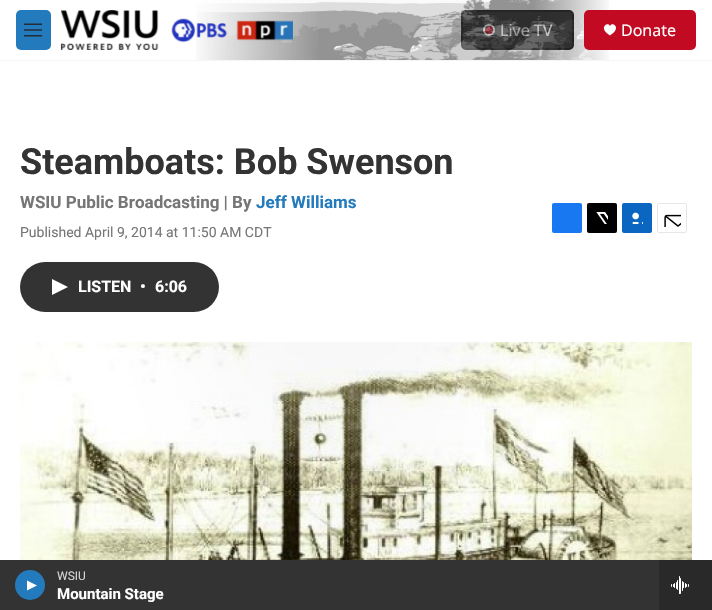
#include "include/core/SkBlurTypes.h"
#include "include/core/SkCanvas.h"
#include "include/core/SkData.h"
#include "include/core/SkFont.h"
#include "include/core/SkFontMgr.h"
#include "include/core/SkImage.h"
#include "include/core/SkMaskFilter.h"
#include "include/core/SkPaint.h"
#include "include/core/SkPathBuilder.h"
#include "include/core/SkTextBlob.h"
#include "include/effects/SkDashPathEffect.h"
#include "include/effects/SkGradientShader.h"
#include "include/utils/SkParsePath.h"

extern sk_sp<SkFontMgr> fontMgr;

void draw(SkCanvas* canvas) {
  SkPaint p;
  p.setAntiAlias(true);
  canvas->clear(SK_ColorWHITE);
  p.setColor(SkColorSetRGB(245, 245, 245));
  canvas->drawRect(SkRect::MakeLTRB(0, 60, 712, 61), p);
  p.setColor(SkColorSetRGB(35, 123, 189));
  canvas->drawRoundRect(SkRect::MakeLTRB(16, 10, 51, 50), 5, 5, p);
  canvas->drawImageRect(SkImages::DeferredFromEncodedData(SkData::MakeFromFileName("images/2.png")), SkRect::MakeLTRB(24, 23, 42, 37), SkSamplingOptions());
  p.setColor(SkColorSetRGB(51, 51, 51));
  canvas->drawRoundRect(SkRect::MakeLTRB(462, 11, 573, 49), 4, 4, p);
  p.setStyle(SkPaint::kStroke_Style);
  p.setStrokeWidth(2);
  p.setColor(SkColorSetRGB(33, 33, 33));
  canvas->drawRoundRect(SkRect::MakeLTRB(462, 11, 573, 49), 4, 4, p);
  p.setColor(SK_ColorWHITE);
  canvas->drawCircle(489, 30, 5, p);
  p.setStyle(SkPaint::kFill_Style);
  p.setColor(SkColorSetRGB(194, 10, 34));
  canvas->drawPath(SkPathBuilder().moveTo(490, 26).cubicTo(496, 27.5f, 491.5f, 37, 486.5f, 33).cubicTo(486, 32.5f, 485, 31.5f, 485, 31).cubicTo(485, 28.5f, 488, 26.5f, 490, 26).close().detach(), p);
  p.setColor(SkColorSetRGB(51, 51, 51));
  canvas->drawRect(SkRect::MakeLTRB(0, 560, 659, 610), p);
  p.setColor(SkColorSetRGB(35, 123, 189));
  canvas->drawCircle(30, 585, 15, p);
  p.setColor(SK_ColorWHITE);
  canvas->drawPath(SkPathBuilder().moveTo(27, 580.5f).lineTo(37, 585.5f).lineTo(27, 590.5f).close().detach(), p);
  p.setColor(SkColorSetRGB(41, 41, 41));
  canvas->drawRect(SkRect::MakeLTRB(659, 560, 712, 610), p);
  canvas->drawImageRect(SkImages::DeferredFromEncodedData(SkData::MakeFromFileName("images/4.png")), SkRect::MakeLTRB(671, 576, 689, 594), SkSamplingOptions());
  p.setColor(SkColorSetRGB(23, 120, 242));
  canvas->drawRoundRect(SkRect::MakeLTRB(552, 203, 582, 233), 2, 2, p);
  p.setColor(SK_ColorBLACK);
  canvas->drawRoundRect(SkRect::MakeLTRB(587, 203, 617, 233), 2, 2, p);
  canvas->drawImageRect(SkImages::DeferredFromEncodedData(SkData::MakeFromFileName("images/5.png")), SkRect::MakeLTRB(596, 212, 608, 224), SkSamplingOptions());
  p.setColor(SkColorSetRGB(10, 102, 193));
  canvas->drawRoundRect(SkRect::MakeLTRB(622, 203, 652, 233), 2, 2, p);
  canvas->drawImageRect(SkImages::DeferredFromEncodedData(SkData::MakeFromFileName("images/6.png")), SkRect::MakeLTRB(632, 212, 643, 224), SkSamplingOptions());
  p.setStyle(SkPaint::kStroke_Style);
  p.setStrokeWidth(1);
  p.setColor(SkColorSetRGB(230, 230, 230));
  canvas->drawRoundRect(SkRect::MakeLTRB(657.5f, 203.5f, 686.5f, 232.5f), 1.5f, 1.5f, p);
  canvas->drawImageRect(SkImages::DeferredFromEncodedData(SkData::MakeFromFileName("images/7.png")), SkRect::MakeLTRB(664, 214, 681, 227), SkSamplingOptions());
  p.setStyle(SkPaint::kFill_Style);
  p.setColor(SkColorSetRGB(51, 51, 51));
  canvas->drawRoundRect(SkRect::MakeLTRB(20, 262, 219, 312), 25, 25, p);
  p.setColor(SK_ColorWHITE);
  canvas->drawPath(SkPathBuilder().moveTo(52, 279).lineTo(68, 287).lineTo(52, 295).close().detach(), p);
  canvas->drawImageRect(SkImages::DeferredFromEncodedData(SkData::MakeFromFileName("images/8.png")), SkRect::MakeLTRB(20, 342, 692, 560), SkSamplingOptions());
  SkFont font1(fontMgr->matchFamilyStyle("Noto Sans", SkFontStyle::Normal()), 16);
  font1.setSubpixel(true);
  p.setColor(SkColorSetRGB(239, 239, 239));
  canvas->drawString("Live TV", 500, 36, font1, p);
  canvas->drawImageRect(SkImages::DeferredFromEncodedData(SkData::MakeFromFileName("images/1.png")), SkRect::MakeLTRB(196, 0, 609, 60), SkSamplingOptions());
  canvas->drawImageRect(SkImages::DeferredFromEncodedData(SkData::MakeFromFileName("images/3.png")), SkRect::MakeLTRB(60, 10, 293, 50), SkSamplingOptions());
  p.setColor(SkColorSetRGB(194, 10, 34));
  canvas->drawRoundRect(SkRect::MakeLTRB(584, 10, 696, 50), 5, 5, p);
  p.setColor(SK_ColorWHITE);
  canvas->drawPath(SkPathBuilder().moveTo(610, 26).cubicTo(608, 21, 597.5f, 28, 610, 35.5f).cubicTo(622.5f, 28, 612, 21, 610, 26).close().detach(), p);
  canvas->drawString("Donate", 621, 36, font1, p);
  SkFont font2(fontMgr->matchFamilyStyle("Roboto", SkFontStyle::Normal()), 12);
  font2.setSubpixel(true);
  p.setColor(SkColorSetRGB(214, 214, 214));
  canvas->drawString("WSIU", 57, 580, font2, p);
  SkFont font3(fontMgr->matchFamilyStyle("Roboto", SkFontStyle::Bold()), 15);
  font3.setSubpixel(true);
  p.setColor(SK_ColorWHITE);
  canvas->drawString("Mountain Stage", 57, 599, font3, p);
  SkFont font4(fontMgr->matchFamilyStyle("Roboto", SkFontStyle::Bold()), 36);
  font4.setSubpixel(true);
  p.setColor(SkColorSetRGB(51, 51, 51));
  canvas->drawString("Steamboats: Bob Swenson", 20, 174, font4, p);
  SkFont font5(fontMgr->matchFamilyStyle("Roboto", SkFontStyle::Bold()), 17);
  font5.setSubpixel(true);
  p.setColor(SkColorSetRGB(118, 118, 118));
  canvas->drawString("WSIU Public Broadcasting | By", 20, 208, font5, p);
  p.setColor(SkColorSetRGB(35, 123, 189));
  canvas->drawString("Jeff Williams", 256, 208, font5, p);
  SkFont font6(fontMgr->matchFamilyStyle("Roboto", SkFontStyle::Normal()), 14);
  font6.setSubpixel(true);
  p.setColor(SkColorSetRGB(118, 118, 118));
  canvas->drawString("Published April 9, 2014 at 11:50 AM CDT", 20, 237, font6, p);
  SkFont font7(fontMgr->matchFamilyStyle("Roboto", SkFontStyle::Bold()), 16);
  font7.setSubpixel(true);
  p.setColor(SK_ColorWHITE);
  canvas->drawString("LISTEN", 78, 292, font7, p);
  canvas->drawString("•", 140, 292, font7, p);
  canvas->drawString("6:06", 155, 292, font7, p);
}
